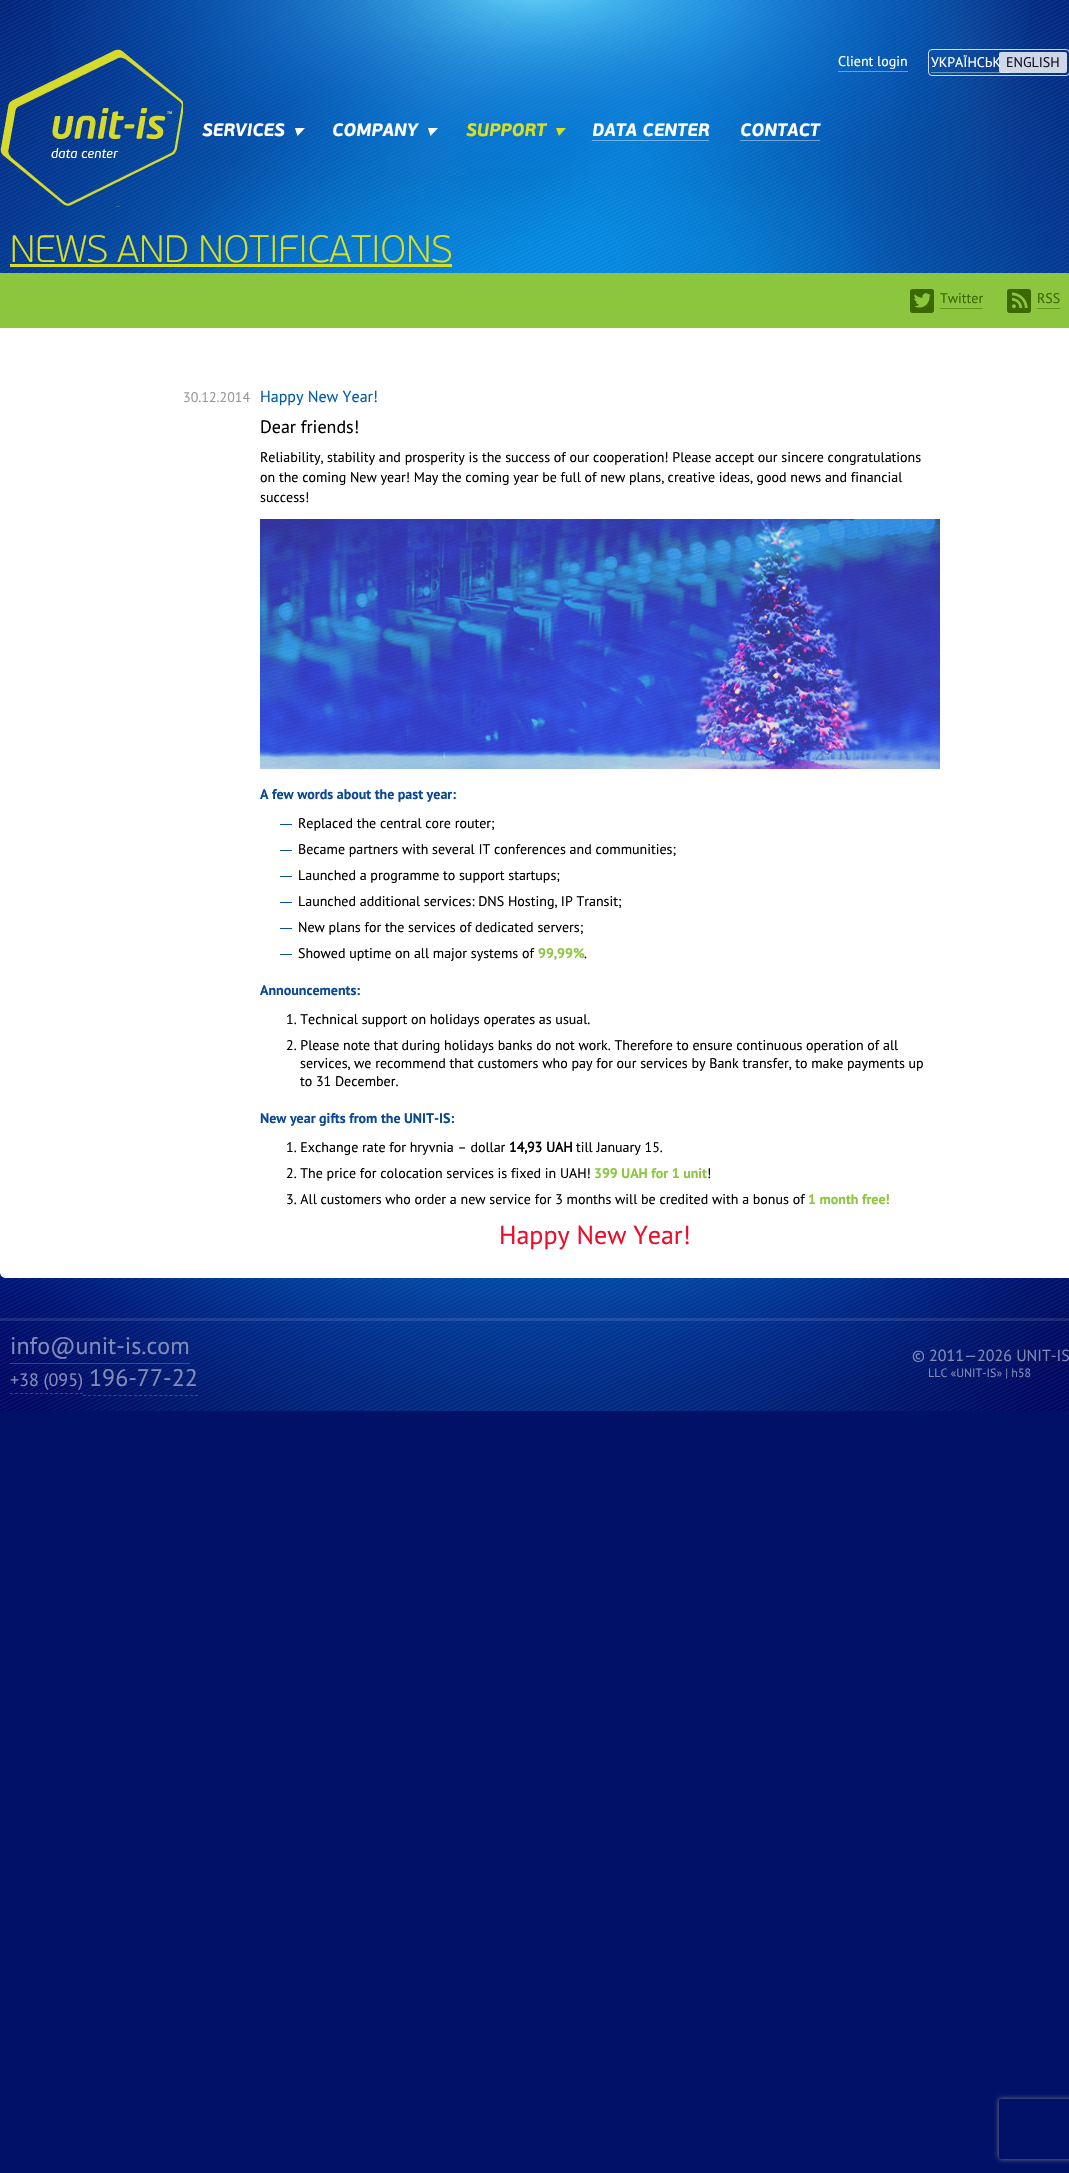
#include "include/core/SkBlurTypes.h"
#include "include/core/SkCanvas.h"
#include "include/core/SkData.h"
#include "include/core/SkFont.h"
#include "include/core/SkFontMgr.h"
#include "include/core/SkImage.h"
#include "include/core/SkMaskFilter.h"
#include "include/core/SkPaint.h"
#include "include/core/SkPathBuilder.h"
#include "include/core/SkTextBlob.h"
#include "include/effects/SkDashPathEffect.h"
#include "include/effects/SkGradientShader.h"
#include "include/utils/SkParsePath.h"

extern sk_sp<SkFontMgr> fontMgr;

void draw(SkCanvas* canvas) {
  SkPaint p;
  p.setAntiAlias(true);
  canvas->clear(SkColorSetRGB(1, 17, 104));
  canvas->drawImageRect(SkImages::DeferredFromEncodedData(SkData::MakeFromFileName("images/1.png")), SkRect::MakeLTRB(0, 0, 1069, 1411), SkSamplingOptions());
  canvas->drawImageRect(SkImages::DeferredFromEncodedData(SkData::MakeFromFileName("images/2.png")), SkRect::MakeLTRB(0, 0, 1069, 1411), SkSamplingOptions());
  canvas->drawImageRect(SkImages::DeferredFromEncodedData(SkData::MakeFromFileName("images/3.png")), SkRect::MakeLTRB(52, 0, 1029, 169), SkSamplingOptions());
  canvas->drawImageRect(SkImages::DeferredFromEncodedData(SkData::MakeFromFileName("images/4.png")), SkRect::MakeLTRB(0, 49, 183, 207), SkSamplingOptions());
  p.setColor(SkColorSetARGB(102, 255, 255, 255));
  canvas->drawRect(SkRect::MakeLTRB(838, 71, 908, 72), p);
  p.setStyle(SkPaint::kStroke_Style);
  p.setStrokeWidth(1);
  p.setColor(SkColorSetARGB(204, 255, 255, 255));
  canvas->drawRoundRect(SkRect::MakeLTRB(928.5f, 49.5f, 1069.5f, 75.5f), 3.5f, 3.5f, p);
  p.setStyle(SkPaint::kFill_Style);
  p.setColor(SkColorSetARGB(102, 255, 255, 255));
  canvas->drawRect(SkRect::MakeLTRB(931, 72, 1009, 73), p);
  p.setColor(SK_ColorWHITE);
  canvas->drawPath(SkPathBuilder().moveTo(295, 128).lineTo(305, 128).lineTo(297.5f, 136).close().detach(), p);
  canvas->drawPath(SkPathBuilder().moveTo(428, 128).lineTo(438, 128).lineTo(430.5f, 136).close().detach(), p);
  p.setColor(SkColorSetRGB(217, 224, 34));
  canvas->drawPath(SkPathBuilder().moveTo(556, 128).lineTo(566, 128).lineTo(559, 136).close().detach(), p);
  p.setColor(SkColorSetARGB(102, 255, 255, 255));
  canvas->drawRect(SkRect::MakeLTRB(592, 140, 709, 141), p);
  canvas->drawRect(SkRect::MakeLTRB(740, 140, 820, 141), p);
  p.setColor(SkColorSetRGB(214, 222, 35));
  canvas->drawRect(SkRect::MakeLTRB(10, 264, 452, 267), p);
  p.setColor(SK_ColorWHITE);
  canvas->drawPath(SkPathBuilder().moveTo(0, 273).lineTo(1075, 273).lineTo(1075, 1272).cubicTo(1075, 1275.5f, 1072.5f, 1278, 1069, 1278).lineTo(6, 1278).cubicTo(2.5f, 1278, 0, 1275.5f, 0, 1272).close().detach(), p);
  p.setColor(SkColorSetRGB(140, 198, 63));
  canvas->drawRect(SkRect::MakeLTRB(0, 273, 1069, 328), p);
  p.setColor(SkColorSetRGB(59, 104, 1));
  canvas->drawRect(SkRect::MakeLTRB(910, 289, 934, 313), p);
  canvas->drawImageRect(SkImages::DeferredFromEncodedData(SkData::MakeFromFileName("images/5.png")), SkRect::MakeLTRB(910, 289, 935, 313), SkSamplingOptions());
  p.setColor(SkColorSetRGB(100, 151, 32));
  canvas->drawRect(SkRect::MakeLTRB(940, 308, 983, 309), p);
  p.setColor(SkColorSetRGB(59, 104, 1));
  canvas->drawRect(SkRect::MakeLTRB(1007, 289, 1031, 313), p);
  canvas->drawImageRect(SkImages::DeferredFromEncodedData(SkData::MakeFromFileName("images/6.png")), SkRect::MakeLTRB(1007, 289, 1032, 313), SkSamplingOptions());
  p.setColor(SkColorSetRGB(100, 151, 32));
  canvas->drawRect(SkRect::MakeLTRB(1037, 308, 1060, 309), p);
  canvas->drawImageRect(SkImages::DeferredFromEncodedData(SkData::MakeFromFileName("images/7.png")), SkRect::MakeLTRB(260, 519, 940, 769), SkSamplingOptions());
  p.setColor(SkColorSetRGB(9, 78, 168));
  canvas->drawRect(SkRect::MakeLTRB(280, 824, 292, 825), p);
  canvas->drawRect(SkRect::MakeLTRB(280, 850, 292, 851), p);
  canvas->drawRect(SkRect::MakeLTRB(280, 876, 292, 877), p);
  canvas->drawRect(SkRect::MakeLTRB(280, 902, 292, 903), p);
  canvas->drawRect(SkRect::MakeLTRB(280, 928, 292, 929), p);
  canvas->drawRect(SkRect::MakeLTRB(280, 954, 292, 955), p);
  p.setColor(SkColorSetARGB(26, 255, 255, 255));
  canvas->drawRect(SkRect::MakeLTRB(0, 1318, 1069, 1321), p);
  p.setColor(SkColorSetARGB(51, 255, 255, 255));
  canvas->drawRect(SkRect::MakeLTRB(10, 1363, 190, 1364), p);
  p.setStyle(SkPaint::kStroke_Style);
  p.setPathEffect(SkDashPathEffect::Make({{3, 2}}, 0));
  canvas->drawPath(SkPathBuilder().moveTo(10, 1393.5f).lineTo(83, 1393.5f).detach(), p);
  p.setPathEffect(nullptr);
  p.setPathEffect(SkDashPathEffect::Make({{3, 2.09f}}, 0));
  canvas->drawPath(SkPathBuilder().moveTo(83, 1395.5f).lineTo(198, 1395.5f).detach(), p);
  p.setPathEffect(nullptr);
  canvas->save();
  canvas->clipPath(SkPathBuilder(SkPathFillType::kEvenOdd).moveTo(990, 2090).lineTo(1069, 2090).lineTo(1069, 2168).lineTo(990, 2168).close().moveTo(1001, 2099).lineTo(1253, 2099).cubicTo(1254, 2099, 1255, 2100, 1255, 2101).lineTo(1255, 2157).cubicTo(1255, 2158, 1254, 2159, 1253, 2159).lineTo(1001, 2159).cubicTo(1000, 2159, 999, 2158, 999, 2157).lineTo(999, 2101).cubicTo(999, 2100, 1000, 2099, 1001, 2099).close().detach(), true);
  p.setStyle(SkPaint::kFill_Style);
  p.setColor(SkColorSetRGB(128, 128, 128));
  p.setMaskFilter(SkMaskFilter::MakeBlur(kNormal_SkBlurStyle, 2.5f));
  canvas->drawRoundRect(SkRect::MakeLTRB(999, 2099, 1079, 2159), 2, 2, p);
  p.setMaskFilter(nullptr);
  canvas->restore();
  SkFont font1(fontMgr->matchFamilyStyle("PT Sans", SkFontStyle::Normal()), 14);
  font1.setSubpixel(true);
  p.setColor(SK_ColorWHITE);
  canvas->drawString("Client login", 838, 66, font1, p);
  canvas->drawString("УКРАЇНСЬК", 931, 67, font1, p);
  p.setColor(SkColorSetARGB(204, 255, 255, 255));
  canvas->drawRoundRect(SkRect::MakeLTRB(999, 52, 1067, 73), 2, 2, p);
  p.setColor(SkColorSetRGB(21, 18, 35));
  canvas->drawString("ENGLISH", 1006, 67, font1, p);
  SkFont font2(fontMgr->matchFamilyStyle("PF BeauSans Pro", SkFontStyle::BoldItalic()), 18);
  font2.setSubpixel(true);
  p.setColor(SK_ColorWHITE);
  canvas->drawString("SERVICES", 202, 136, font2, p);
  canvas->drawString("COMPANY", 332, 136, font2, p);
  p.setColor(SkColorSetRGB(217, 224, 34));
  canvas->drawString("SUPPORT", 466, 136, font2, p);
  p.setColor(SK_ColorWHITE);
  canvas->drawString("DATA CENTER", 592, 136, font2, p);
  canvas->drawString("CONTACT", 740, 136, font2, p);
  SkFont font3(fontMgr->matchFamilyStyle("PF BeauSans Pro", SkFontStyle(100, SkFontStyle::kNormal_Width, SkFontStyle::kUpright_Slant)), 38);
  font3.setSubpixel(true);
  p.setColor(SkColorSetRGB(217, 224, 34));
  canvas->drawString("NEWS AND NOTIFICATIONS", 10, 262, font3, p);
  p.setColor(SkColorSetRGB(59, 104, 1));
  canvas->drawString("Twitter", 940, 303, font1, p);
  canvas->drawString("RSS", 1037, 303, font1, p);
  p.setColor(SkColorSetRGB(153, 153, 153));
  canvas->drawString("30.12.2014", 183, 402, font1, p);
  SkFont font4(fontMgr->matchFamilyStyle("PT Sans", SkFontStyle::Normal()), 16);
  font4.setSubpixel(true);
  p.setColor(SkColorSetRGB(3, 92, 170));
  canvas->drawString("Happy New Year!", 260, 402, font4, p);
  SkFont font5(fontMgr->matchFamilyStyle("PT Sans", SkFontStyle::Normal()), 18);
  font5.setSubpixel(true);
  p.setColor(SK_ColorBLACK);
  canvas->drawString("Dear friends!", 260, 433, font5, p);
  canvas->drawString("Reliability, stability and prosperity is the success of our cooperation! Please accept our sincere congratulations", 260, 462, font1, p);
  canvas->drawString("on the coming New year! May the coming year be full of new plans, creative ideas, good news and financial", 260, 482, font1, p);
  canvas->drawString("success!", 260, 502, font1, p);
  SkFont font6(fontMgr->matchFamilyStyle("PT Sans", SkFontStyle::Bold()), 14);
  font6.setSubpixel(true);
  p.setColor(SkColorSetRGB(10, 72, 146));
  canvas->drawString("A few words about the past year:", 260, 799, font6, p);
  p.setColor(SK_ColorBLACK);
  canvas->drawString("Replaced the central core router;", 298, 828, font1, p);
  canvas->drawString("Became partners with several IT conferences and communities;", 298, 854, font1, p);
  canvas->drawString("Launched a programme to support startups;", 298, 880, font1, p);
  canvas->drawString("Launched additional services: DNS Hosting, IP Transit;", 298, 906, font1, p);
  canvas->drawString("New plans for the services of dedicated servers;", 298, 932, font1, p);
  canvas->drawString("Showed uptime on all major systems of", 298, 958, font1, p);
  p.setColor(SkColorSetRGB(140, 198, 63));
  canvas->drawString("99,99%", 538, 958, font6, p);
  p.setColor(SK_ColorBLACK);
  canvas->drawString(".", 584, 958, font1, p);
  p.setColor(SkColorSetRGB(10, 72, 146));
  canvas->drawString("Announcements:", 260, 995, font6, p);
  p.setColor(SK_ColorBLACK);
  canvas->drawString("1. Technical support on holidays operates as usual.", 286, 1024, font1, p);
  canvas->drawString("2. Please note that during holidays banks do not work. Therefore to ensure continuous operation of all", 286, 1050, font1, p);
  canvas->drawString("services, we recommend that customers who pay for our services by Bank transfer, to make payments up", 300, 1068, font1, p);
  canvas->drawString("to 31 December.", 300, 1086, font1, p);
  p.setColor(SkColorSetRGB(10, 72, 146));
  canvas->drawString("New year gifts from the UNIT-IS:", 260, 1123, font6, p);
  p.setColor(SK_ColorBLACK);
  canvas->drawString("1. Exchange rate for hryvnia – dollar", 286, 1152, font1, p);
  SkFont font7(fontMgr->matchFamilyStyle("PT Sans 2", SkFontStyle::Bold()), 14);
  font7.setSubpixel(true);
  canvas->drawString("14,93 UAH", 509, 1152, font7, p);
  canvas->drawString("till January 15.", 576, 1152, font1, p);
  canvas->drawString("2. The price for colocation services is fixed in UAH!", 286, 1178, font1, p);
  p.setColor(SkColorSetRGB(140, 198, 63));
  canvas->drawString("399 UAH for 1 unit", 594, 1178, font6, p);
  p.setColor(SK_ColorBLACK);
  canvas->drawString("!", 707, 1178, font1, p);
  canvas->drawString("3. All customers who order a new service for 3 months will be credited with a bonus of", 286, 1204, font1, p);
  p.setColor(SkColorSetRGB(140, 198, 63));
  canvas->drawString("1 month free!", 808, 1204, font6, p);
  SkFont font8(fontMgr->matchFamilyStyle("PT Sans", SkFontStyle::Normal()), 26);
  font8.setSubpixel(true);
  p.setColor(SkColorSetRGB(237, 12, 41));
  canvas->drawString("Happy New Year!", 499, 1244, font8, p);
  SkFont font9(fontMgr->matchFamilyStyle("PT Sans", SkFontStyle::Normal()), 24);
  font9.setSubpixel(true);
  p.setColor(SkColorSetRGB(130, 140, 185));
  canvas->drawString("info@unit-is.com", 10, 1354, font9, p);
  canvas->drawString("+38 (095)", 10, 1386, font5, p);
  canvas->drawString("196-77-22", 89, 1386, font9, p);
  canvas->drawString("©", 912, 1361, font4, p);
  canvas->drawString("2011—", 929, 1361, font4, p);
  p.setColor(SkColorSetRGB(129, 136, 179));
  canvas->drawString("2026 UNIT-IS", 977, 1361, font4, p);
  SkFont font10(fontMgr->matchFamilyStyle("PT Sans", SkFontStyle::Normal()), 12);
  font10.setSubpixel(true);
  p.setColor(SkColorSetRGB(130, 140, 185));
  canvas->drawString("LLC «UNIT-IS» | h58", 928, 1377, font10, p);
}
